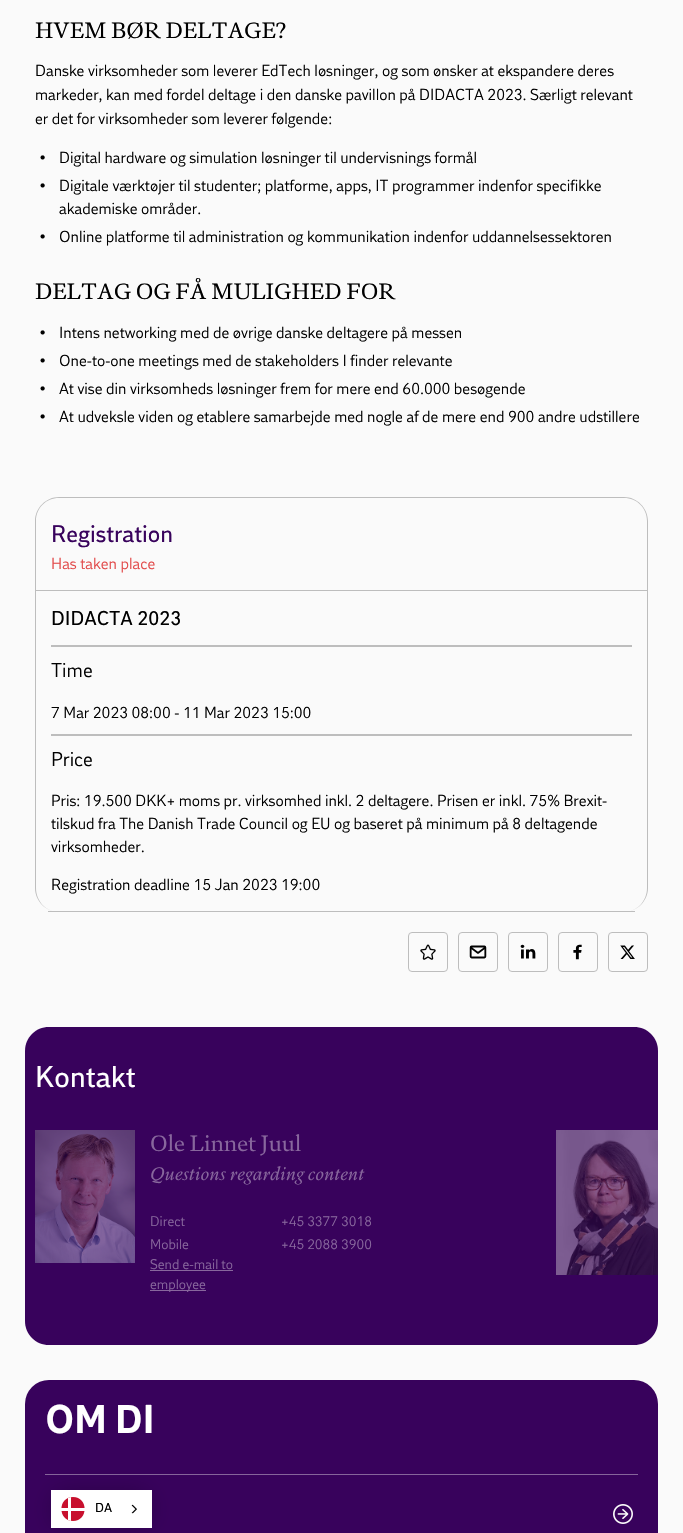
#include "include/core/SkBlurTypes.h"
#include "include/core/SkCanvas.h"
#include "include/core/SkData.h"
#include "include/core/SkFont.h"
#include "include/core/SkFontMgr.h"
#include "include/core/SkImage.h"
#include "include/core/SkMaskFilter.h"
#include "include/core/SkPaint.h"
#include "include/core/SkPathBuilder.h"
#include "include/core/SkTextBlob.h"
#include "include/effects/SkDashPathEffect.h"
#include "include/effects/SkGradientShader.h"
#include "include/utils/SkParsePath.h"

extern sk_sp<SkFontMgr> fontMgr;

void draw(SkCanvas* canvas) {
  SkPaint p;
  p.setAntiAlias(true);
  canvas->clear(SkColorSetRGB(250, 250, 250));
  p.setColor(SkColorSetRGB(189, 189, 189));
  canvas->drawPath(SkPathBuilder(SkPathFillType::kEvenOdd).moveTo(59, 497).lineTo(624, 497).cubicTo(637, 497, 648, 508, 648, 521).lineTo(648, 888).cubicTo(648, 901, 637, 912, 624, 912).lineTo(59, 912).cubicTo(46, 912, 35, 901, 35, 888).lineTo(35, 521).cubicTo(35, 508, 46, 497, 59, 497).close().moveTo(59, 498).lineTo(624, 498).cubicTo(637, 498, 647, 508, 647, 521).lineTo(647, 888).cubicTo(647, 901, 637, 912, 624, 912).lineTo(59, 912).cubicTo(46, 912, 36, 901, 36, 888).lineTo(36, 521).cubicTo(36, 508, 46, 498, 59, 498).close().detach(), p);
  canvas->drawRect(SkRect::MakeLTRB(36, 590, 647, 591), p);
  canvas->drawRect(SkRect::MakeLTRB(48, 911, 635, 912), p);
  canvas->drawRect(SkRect::MakeLTRB(51, 645, 632, 647), p);
  canvas->drawRect(SkRect::MakeLTRB(51, 734, 632, 736), p);
  p.setStyle(SkPaint::kStroke_Style);
  p.setStrokeWidth(1);
  canvas->drawRoundRect(SkRect::MakeLTRB(408.5f, 932.5f, 447.5f, 971.5f), 3.5f, 3.5f, p);
  canvas->drawImageRect(SkImages::DeferredFromEncodedData(SkData::MakeFromFileName("images/1.png")), SkRect::MakeLTRB(420, 944, 436, 960), SkSamplingOptions());
  canvas->drawRoundRect(SkRect::MakeLTRB(458.5f, 932.5f, 497.5f, 971.5f), 3.5f, 3.5f, p);
  canvas->drawImageRect(SkImages::DeferredFromEncodedData(SkData::MakeFromFileName("images/2.png")), SkRect::MakeLTRB(469, 945, 487, 959), SkSamplingOptions());
  canvas->drawRoundRect(SkRect::MakeLTRB(508.5f, 932.5f, 547.5f, 971.5f), 3.5f, 3.5f, p);
  canvas->drawImageRect(SkImages::DeferredFromEncodedData(SkData::MakeFromFileName("images/3.png")), SkRect::MakeLTRB(520, 944, 536, 959), SkSamplingOptions());
  canvas->drawRoundRect(SkRect::MakeLTRB(558.5f, 932.5f, 597.5f, 971.5f), 3.5f, 3.5f, p);
  canvas->drawImageRect(SkImages::DeferredFromEncodedData(SkData::MakeFromFileName("images/4.png")), SkRect::MakeLTRB(573, 944, 582, 960), SkSamplingOptions());
  canvas->drawRoundRect(SkRect::MakeLTRB(608.5f, 932.5f, 647.5f, 971.5f), 3.5f, 3.5f, p);
  canvas->drawImageRect(SkImages::DeferredFromEncodedData(SkData::MakeFromFileName("images/5.png")), SkRect::MakeLTRB(620, 945, 635, 959), SkSamplingOptions());
  p.setStyle(SkPaint::kFill_Style);
  p.setColor(SkColorSetRGB(56, 2, 92));
  canvas->drawPath(SkPathBuilder().moveTo(49, 1027).lineTo(634, 1027).cubicTo(647.5f, 1027, 658, 1037.5f, 658, 1051).lineTo(658, 1115).lineTo(25, 1115).lineTo(25, 1051).cubicTo(25, 1037.5f, 35.5f, 1027, 49, 1027).close().detach(), p);
  canvas->drawPath(SkPathBuilder().moveTo(25, 1115).lineTo(658, 1115).lineTo(658, 1321).cubicTo(658, 1334.5f, 647.5f, 1345, 634, 1345).lineTo(49, 1345).cubicTo(35.5f, 1345, 25, 1334.5f, 25, 1321).close().detach(), p);
  canvas->drawImageRect(SkImages::DeferredFromEncodedData(SkData::MakeFromFileName("images/6.png")), SkRect::MakeLTRB(35, 1130, 135, 1263), SkSamplingOptions());
  p.setColor(SkColorSetRGB(136, 103, 157));
  canvas->drawRect(SkRect::MakeLTRB(150, 1270, 233, 1271), p);
  canvas->drawRect(SkRect::MakeLTRB(150, 1290, 206, 1291), p);
  canvas->drawImageRect(SkImages::DeferredFromEncodedData(SkData::MakeFromFileName("images/7.png")), SkRect::MakeLTRB(556, 1130, 658, 1275), SkSamplingOptions());
  p.setColor(SkColorSetRGB(56, 2, 92));
  canvas->drawRoundRect(SkRect::MakeLTRB(25, 1380, 658, 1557), 24, 24, p);
  p.setColor(SkColorSetRGB(134, 101, 155));
  canvas->drawRect(SkRect::MakeLTRB(45, 1474, 638, 1475), p);
  canvas->drawImageRect(SkImages::DeferredFromEncodedData(SkData::MakeFromFileName("images/8.png")), SkRect::MakeLTRB(613, 1504, 633, 1524), SkSamplingOptions());
  p.setColor(SkColorSetARGB(51, 0, 0, 0));
  p.setMaskFilter(SkMaskFilter::MakeBlur(kNormal_SkBlurStyle, 10));
  canvas->drawRoundRect(SkRect::MakeLTRB(51, 1490, 152, 1528), 19, 19, p);
  p.setMaskFilter(nullptr);
  p.setColor(SK_ColorWHITE);
  canvas->drawRect(SkRect::MakeLTRB(51, 1490, 152, 1528), p);
  p.setColor(SkColorSetRGB(200, 16, 46));
  canvas->drawPath(SkPathBuilder().moveTo(73, 1497).cubicTo(88.5f, 1497, 88.5f, 1521, 73, 1521).cubicTo(57.5f, 1521, 57.5f, 1497, 73, 1497).close().detach(), p);
  p.setColor(SK_ColorWHITE);
  canvas->drawPath(SkPathBuilder().moveTo(68, 1498).lineTo(71, 1497).lineTo(71, 1521).lineTo(68, 1520).close().detach(), p);
  canvas->drawRect(SkRect::MakeLTRB(61, 1508, 85, 1511), p);
  canvas->drawImageRect(SkImages::DeferredFromEncodedData(SkData::MakeFromFileName("images/9.png")), SkRect::MakeLTRB(131, 1504, 137, 1514), SkSamplingOptions());
  SkFont font1(fontMgr->matchFamilyStyle("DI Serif", SkFontStyle::Normal()), 22);
  font1.setSubpixel(true);
  p.setColor(SK_ColorBLACK);
  canvas->drawString("HVEM BØR DELTAGE?", 35, 38, font1, p);
  SkFont font2(fontMgr->matchFamilyStyle("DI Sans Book", SkFontStyle::Normal()), 16);
  font2.setSubpixel(true);
  canvas->drawString("Danske virksomheder som leverer EdTech løsninger, og som ønsker at ekspandere deres", 35, 76, font2, p);
  canvas->drawString("markeder, kan med fordel deltage i den danske pavillon på DIDACTA 2023. Særligt relevant", 35, 100, font2, p);
  canvas->drawString("er det for virksomheder som leverer følgende:", 35, 124, font2, p);
  SkFont font3(fontMgr->matchFamilyStyle("DI Sans Book", SkFontStyle::Normal()), 10);
  font3.setSubpixel(true);
  canvas->drawString("•", 40, 161, font3, p);
  canvas->drawString("Digital hardware og simulation løsninger til undervisnings formål", 59, 163, font2, p);
  canvas->drawString("•", 40, 189, font3, p);
  canvas->drawString("Digitale værktøjer til studenter; platforme, apps, IT programmer indenfor specifikke", 59, 191, font2, p);
  canvas->drawString("akademiske områder.", 59, 214, font2, p);
  canvas->drawString("•", 40, 240, font3, p);
  canvas->drawString("Online platforme til administration og kommunikation indenfor uddannelsessektoren", 59, 242, font2, p);
  canvas->drawString("DELTAG OG FÅ MULIGHED FOR", 35, 299, font1, p);
  canvas->drawString("•", 40, 336, font3, p);
  canvas->drawString("Intens networking med de øvrige danske deltagere på messen", 59, 338, font2, p);
  canvas->drawString("•", 40, 364, font3, p);
  canvas->drawString("One-to-one meetings med de stakeholders I finder relevante", 59, 366, font2, p);
  canvas->drawString("•", 40, 392, font3, p);
  canvas->drawString("At vise din virksomheds løsninger frem for mere end 60.000 besøgende", 59, 394, font2, p);
  canvas->drawString("•", 40, 420, font3, p);
  canvas->drawString("At udveksle viden og etablere samarbejde med nogle af de mere end 900 andre udstillere", 59, 422, font2, p);
  SkFont font4(fontMgr->matchFamilyStyle("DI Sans", SkFontStyle::Normal()), 24);
  font4.setSubpixel(true);
  p.setColor(SkColorSetRGB(56, 2, 92));
  canvas->drawString("Registration", 51, 542, font4, p);
  p.setColor(SkColorSetRGB(226, 74, 74));
  canvas->drawString("Has taken place", 51, 569, font2, p);
  SkFont font5(fontMgr->matchFamilyStyle("DI Sans", SkFontStyle::Normal()), 20);
  font5.setSubpixel(true);
  p.setColor(SK_ColorBLACK);
  canvas->drawString("DIDACTA 2023", 51, 625, font5, p);
  SkFont font6(fontMgr->matchFamilyStyle("DI Sans Book", SkFontStyle::Normal()), 20);
  font6.setSubpixel(true);
  canvas->drawString("Time", 51, 677, font6, p);
  canvas->drawString("7 Mar 2023 08:00 - 11 Mar 2023 15:00", 51, 718, font2, p);
  canvas->drawString("Price", 51, 766, font6, p);
  canvas->drawString("Pris: 19.500 DKK+ moms pr. virksomhed inkl. 2 deltagere. Prisen er inkl. 75% Brexit-", 51, 806, font2, p);
  canvas->drawString("tilskud fra The Danish Trade Council og EU og baseret på minimum på 8 deltagende", 51, 829, font2, p);
  canvas->drawString("virksomheder.", 51, 852, font2, p);
  canvas->drawString("Registration deadline 15 Jan 2023 19:00", 51, 890, font2, p);
  SkFont font7(fontMgr->matchFamilyStyle("DI Sans", SkFontStyle::Normal()), 30);
  font7.setSubpixel(true);
  p.setColor(SK_ColorWHITE);
  canvas->drawString("Kontakt", 35, 1087, font7, p);
  p.setColor(SkColorSetRGB(136, 103, 157));
  canvas->drawString("Ole Linnet Juul", 150, 1151, font1, p);
  SkFont font8(fontMgr->matchFamilyStyle("DI Serif", SkFontStyle::Italic()), 18);
  font8.setSubpixel(true);
  canvas->drawString("Questions regarding content", 150, 1180, font8, p);
  SkFont font9(fontMgr->matchFamilyStyle("DI Sans Book", SkFontStyle::Normal()), 14);
  font9.setSubpixel(true);
  canvas->drawString("Direct", 150, 1226, font9, p);
  canvas->drawString("+45 3377 3018", 281, 1226, font9, p);
  canvas->drawString("Mobile", 150, 1249, font9, p);
  canvas->drawString("+45 2088 3900", 281, 1249, font9, p);
  canvas->drawString("Send e-mail to", 150, 1269, font9, p);
  canvas->drawString("employee", 150, 1289, font9, p);
  SkFont font10(fontMgr->matchFamilyStyle("DI Sans", SkFontStyle::Bold()), 40);
  font10.setSubpixel(true);
  p.setColor(SK_ColorWHITE);
  canvas->drawString("OM DI", 45, 1433, font10, p);
  SkFont font11(fontMgr->matchFamilyStyle("DI Sans", SkFontStyle::Normal()), 13);
  font11.setSubpixel(true);
  p.setColor(SK_ColorBLACK);
  canvas->drawString("DA", 95, 1512, font11, p);
}
